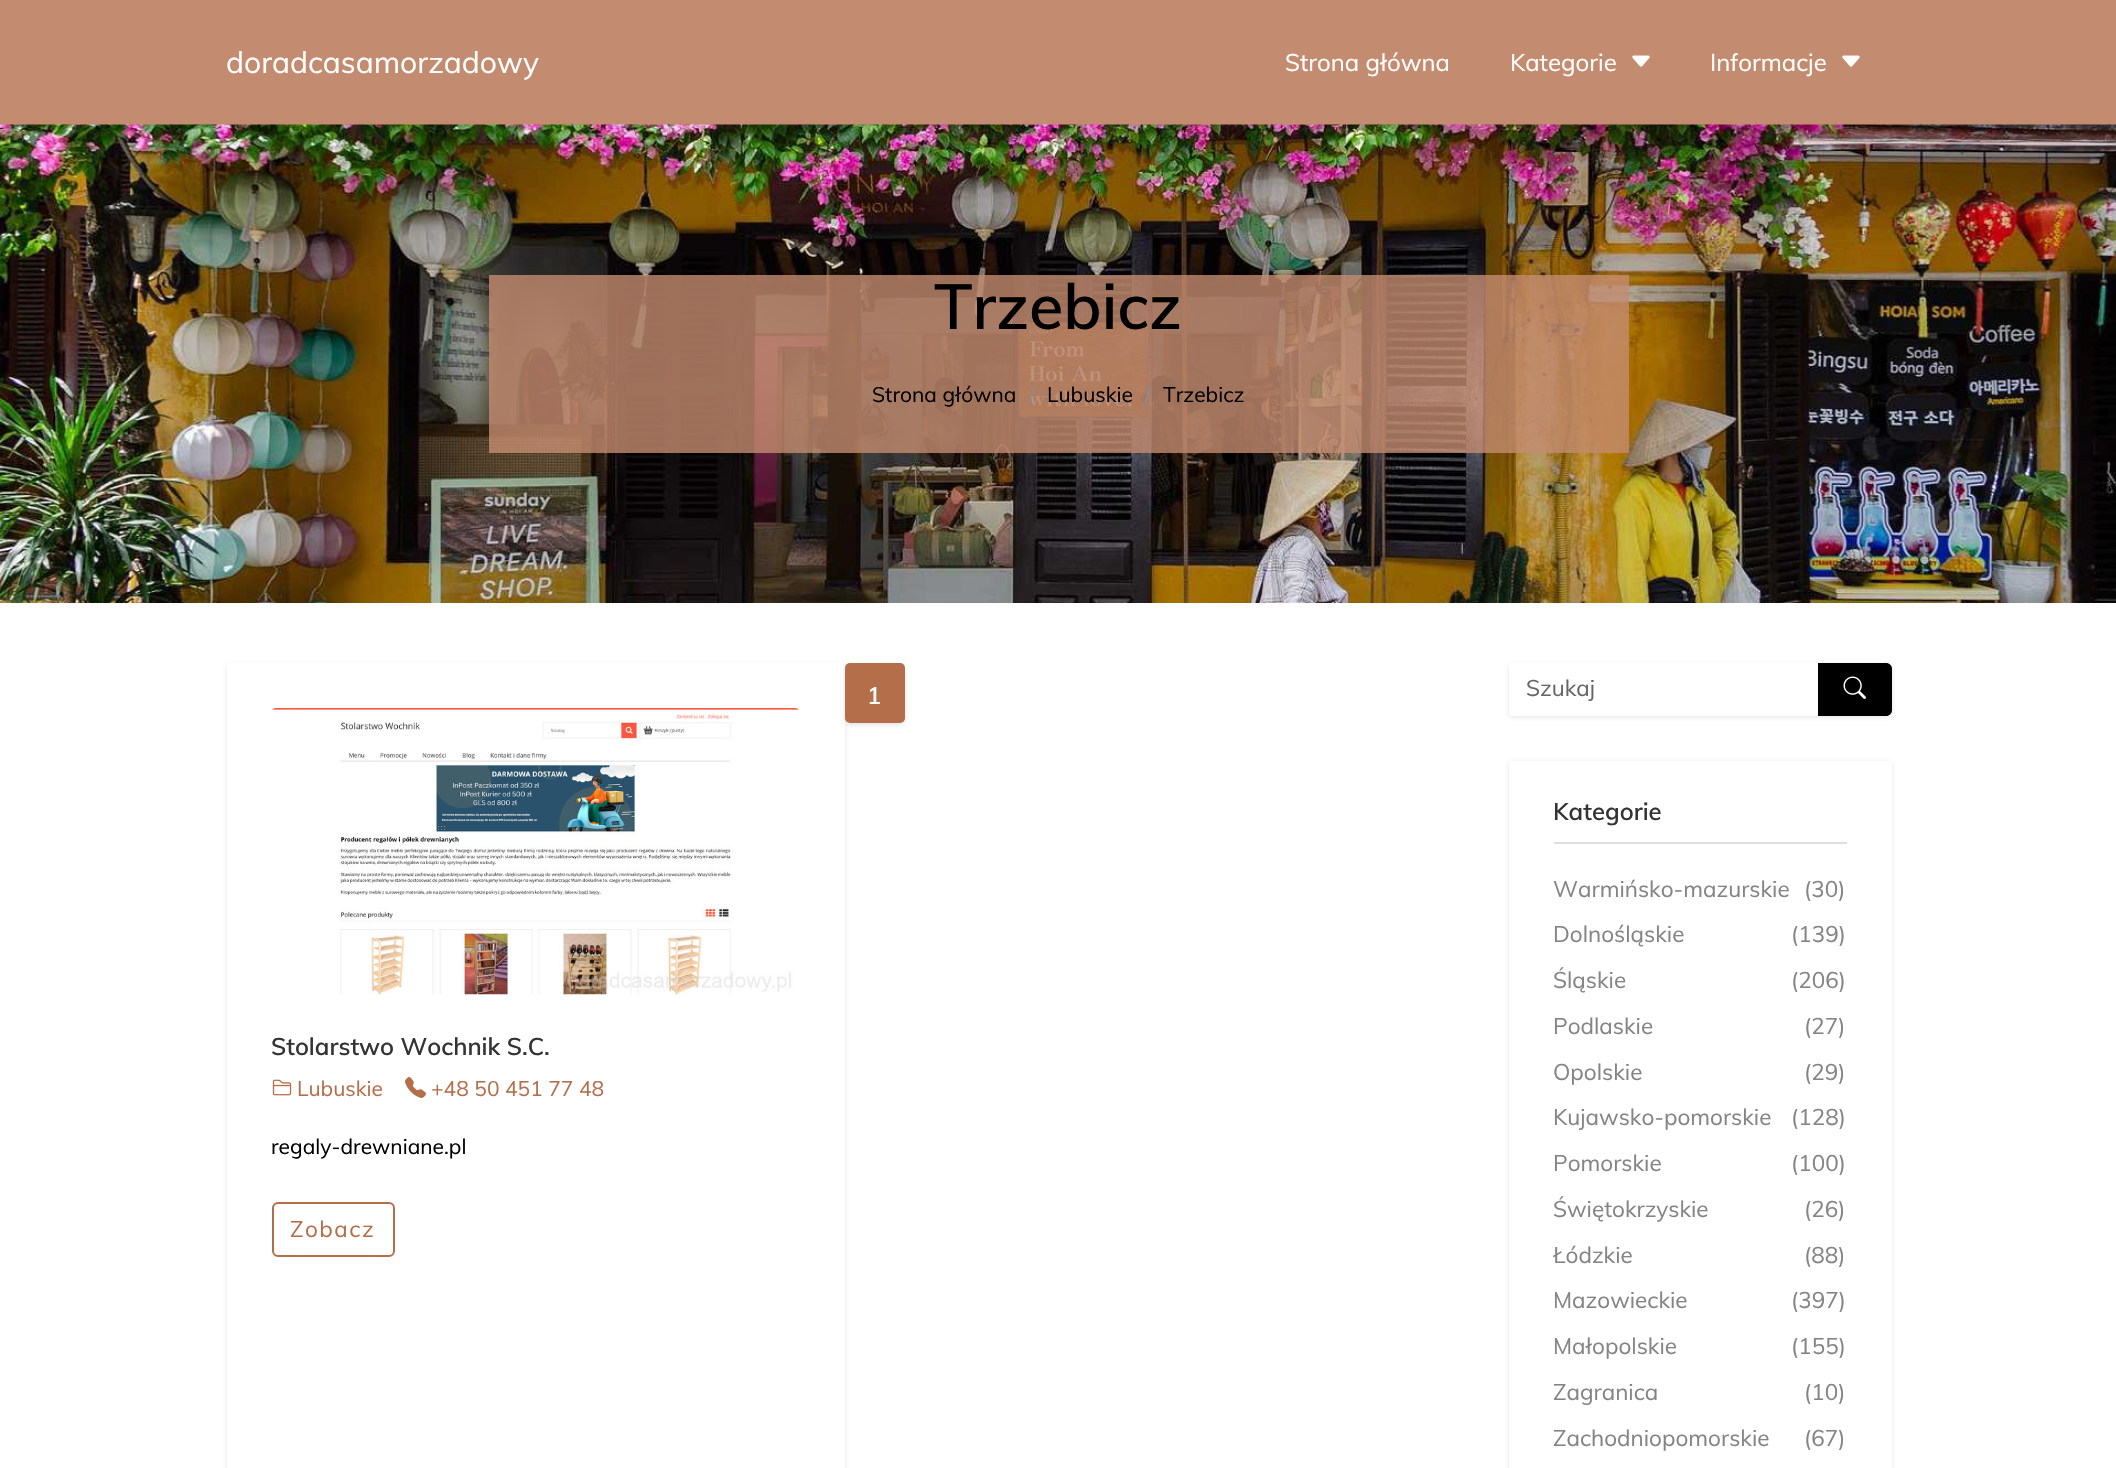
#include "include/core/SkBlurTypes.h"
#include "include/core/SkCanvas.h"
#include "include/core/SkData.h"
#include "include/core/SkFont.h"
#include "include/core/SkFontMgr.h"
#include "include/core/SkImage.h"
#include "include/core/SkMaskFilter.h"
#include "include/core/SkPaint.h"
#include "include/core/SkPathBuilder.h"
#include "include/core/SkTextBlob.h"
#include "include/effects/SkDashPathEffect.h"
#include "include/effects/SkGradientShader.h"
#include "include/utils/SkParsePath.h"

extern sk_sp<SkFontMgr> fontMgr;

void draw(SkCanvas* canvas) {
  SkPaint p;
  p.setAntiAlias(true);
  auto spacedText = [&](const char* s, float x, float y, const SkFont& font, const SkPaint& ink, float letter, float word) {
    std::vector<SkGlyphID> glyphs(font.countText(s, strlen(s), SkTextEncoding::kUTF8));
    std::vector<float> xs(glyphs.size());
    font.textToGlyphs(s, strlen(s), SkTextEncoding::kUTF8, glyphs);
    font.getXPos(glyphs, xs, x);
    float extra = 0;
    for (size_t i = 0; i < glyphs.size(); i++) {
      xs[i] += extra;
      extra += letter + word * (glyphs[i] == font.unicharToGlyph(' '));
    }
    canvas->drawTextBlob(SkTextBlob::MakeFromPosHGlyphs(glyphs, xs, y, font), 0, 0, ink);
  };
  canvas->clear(SK_ColorWHITE);
  p.setColor(SkColorSetRGB(195, 139, 111));
  canvas->drawRect(SkRect::MakeLTRB(0, 0, 2116, 125), p);
  canvas->drawImageRect(SkImages::DeferredFromEncodedData(SkData::MakeFromFileName("images/1.png")), SkRect::MakeLTRB(1632, 55, 1650, 67), SkSamplingOptions());
  canvas->drawImageRect(SkImages::DeferredFromEncodedData(SkData::MakeFromFileName("images/1.png")), SkRect::MakeLTRB(1842, 55, 1860, 67), SkSamplingOptions());
  canvas->drawImageRect(SkImages::DeferredFromEncodedData(SkData::MakeFromFileName("images/2.png")), SkRect::MakeLTRB(0, 124, 2116, 603), SkSamplingOptions());
  p.setColor(SkColorSetARGB(204, 195, 139, 111));
  canvas->drawRect(SkRect::MakeLTRB(489, 275, 1629, 453), p);
  p.setColor(SkColorSetARGB(26, 0, 0, 0));
  p.setMaskFilter(SkMaskFilter::MakeBlur(kNormal_SkBlurStyle, 2));
  canvas->drawRoundRect(SkRect::MakeLTRB(227, 665, 845, 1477), 3, 3, p);
  p.setMaskFilter(nullptr);
  p.setColor(SK_ColorWHITE);
  canvas->drawRoundRect(SkRect::MakeLTRB(227, 663, 845, 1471), 3, 3, p);
  p.setColor(SkColorSetARGB(26, 0, 0, 0));
  p.setMaskFilter(SkMaskFilter::MakeBlur(kNormal_SkBlurStyle, 2));
  canvas->drawRoundRect(SkRect::MakeLTRB(845, 665, 905, 725), 5, 5, p);
  p.setMaskFilter(nullptr);
  p.setColor(SkColorSetRGB(181, 110, 74));
  canvas->drawRoundRect(SkRect::MakeLTRB(845, 663, 905, 723), 5, 5, p);
  canvas->drawImageRect(SkImages::DeferredFromEncodedData(SkData::MakeFromFileName("images/3.png")), SkRect::MakeLTRB(272, 708, 799, 995), SkSamplingOptions());
  canvas->drawImageRect(SkImages::DeferredFromEncodedData(SkData::MakeFromFileName("images/4.png")), SkRect::MakeLTRB(272, 1079, 292, 1096), SkSamplingOptions());
  canvas->drawImageRect(SkImages::DeferredFromEncodedData(SkData::MakeFromFileName("images/5.png")), SkRect::MakeLTRB(405, 1077, 426, 1098), SkSamplingOptions());
  p.setStyle(SkPaint::kStroke_Style);
  p.setStrokeWidth(2);
  canvas->drawRoundRect(SkRect::MakeLTRB(273, 1203, 394, 1256), 5, 5, p);
  p.setStyle(SkPaint::kFill_Style);
  p.setColor(SkColorSetARGB(26, 0, 0, 0));
  p.setMaskFilter(SkMaskFilter::MakeBlur(kNormal_SkBlurStyle, 2));
  canvas->drawRoundRect(SkRect::MakeLTRB(1509, 665, 1892, 717), 3, 3, p);
  p.setMaskFilter(nullptr);
  p.setColor(SK_ColorWHITE);
  canvas->drawRoundRect(SkRect::MakeLTRB(1509, 663, 1892, 716), 3, 3, p);
  p.setColor(SK_ColorBLACK);
  canvas->drawPath(SkPathBuilder().moveTo(1818, 663).lineTo(1886, 663).cubicTo(1889.5f, 663, 1892, 665.5f, 1892, 669).lineTo(1892, 710).cubicTo(1892, 713.5f, 1889.5f, 716, 1886, 716).lineTo(1818, 716).close().detach(), p);
  canvas->drawImageRect(SkImages::DeferredFromEncodedData(SkData::MakeFromFileName("images/6.png")), SkRect::MakeLTRB(1843, 676, 1866, 699), SkSamplingOptions());
  p.setColor(SkColorSetARGB(26, 0, 0, 0));
  p.setMaskFilter(SkMaskFilter::MakeBlur(kNormal_SkBlurStyle, 2));
  canvas->drawRoundRect(SkRect::MakeLTRB(1509, 762, 1892, 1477), 3, 3, p);
  p.setMaskFilter(nullptr);
  p.setColor(SK_ColorWHITE);
  canvas->drawRoundRect(SkRect::MakeLTRB(1509, 761, 1892, 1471), 3, 3, p);
  p.setColor(SkColorSetRGB(222, 222, 222));
  canvas->drawRect(SkRect::MakeLTRB(1554, 842, 1847, 844), p);
  SkFont font1(fontMgr->matchFamilyStyle("Muli", SkFontStyle::Normal()), 30);
  font1.setSubpixel(true);
  p.setColor(SK_ColorWHITE);
  canvas->drawString("doradcasamorzadowy", 226, 73, font1, p);
  SkFont font2(fontMgr->matchFamilyStyle("Muli", SkFontStyle::Normal()), 24);
  font2.setSubpixel(true);
  canvas->drawString("Strona główna", 1285, 71, font2, p);
  canvas->drawString("Kategorie", 1510, 71, font2, p);
  canvas->drawString("Informacje", 1710, 71, font2, p);
  SkFont font3(fontMgr->matchFamilyStyle("Muli", SkFontStyle(600, SkFontStyle::kNormal_Width, SkFontStyle::kUpright_Slant)), 63);
  font3.setSubpixel(true);
  p.setColor(SK_ColorBLACK);
  canvas->drawString("Trzebicz", 934, 329, font3, p);
  SkFont font4(fontMgr->matchFamilyStyle("Muli", SkFontStyle::Normal()), 21);
  font4.setSubpixel(true);
  canvas->drawString("Strona główna", 872, 402, font4, p);
  p.setColor(SkColorSetRGB(134, 142, 150));
  canvas->drawString("/", 1029, 402, font4, p);
  p.setColor(SK_ColorBLACK);
  canvas->drawString("Lubuskie", 1047, 402, font4, p);
  p.setColor(SkColorSetRGB(134, 142, 150));
  canvas->drawString("/", 1145, 402, font4, p);
  p.setColor(SK_ColorBLACK);
  canvas->drawString("Trzebicz", 1163, 402, font4, p);
  SkFont font5(fontMgr->matchFamilyStyle("Muli", SkFontStyle(600, SkFontStyle::kNormal_Width, SkFontStyle::kUpright_Slant)), 24);
  font5.setSubpixel(true);
  p.setColor(SK_ColorWHITE);
  canvas->drawString("1", 867, 704, font5, p);
  p.setColor(SkColorSetRGB(51, 51, 51));
  canvas->drawString("Stolarstwo Wochnik S.C.", 271, 1055, font5, p);
  p.setColor(SkColorSetRGB(181, 110, 74));
  canvas->drawString("Lubuskie", 297, 1096, font4, p);
  canvas->drawString("+48 50 451 77 48", 431, 1096, font4, p);
  p.setColor(SK_ColorBLACK);
  canvas->drawString("regaly-drewniane.pl", 271, 1154, font4, p);
  SkFont font6(fontMgr->matchFamilyStyle("Muli", SkFontStyle::Normal()), 22.5f);
  font6.setSubpixel(true);
  p.setColor(SkColorSetRGB(181, 110, 74));
  spacedText("Zobacz", 290, 1237, font6, p, 1.5f, 0);
  p.setColor(SkColorSetRGB(102, 102, 102));
  canvas->drawString("Szukaj", 1526, 696, font6, p);
  p.setColor(SkColorSetRGB(51, 51, 51));
  canvas->drawString("Kategorie", 1553, 820, font5, p);
  p.setColor(SkColorSetRGB(132, 132, 132));
  canvas->drawString("Warmińsko-mazurskie", 1553, 897, font6, p);
  canvas->drawString("(30)", 1804, 897, font6, p);
  canvas->drawString("Dolnośląskie", 1553, 942, font6, p);
  canvas->drawString("(139)", 1791, 942, font6, p);
  canvas->drawString("Śląskie", 1553, 988, font6, p);
  canvas->drawString("(206)", 1791, 988, font6, p);
  canvas->drawString("Podlaskie", 1553, 1034, font6, p);
  canvas->drawString("(27)", 1804, 1034, font6, p);
  canvas->drawString("Opolskie", 1553, 1080, font6, p);
  canvas->drawString("(29)", 1804, 1080, font6, p);
  canvas->drawString("Kujawsko-pomorskie", 1553, 1125, font6, p);
  canvas->drawString("(128)", 1791, 1125, font6, p);
  canvas->drawString("Pomorskie", 1553, 1171, font6, p);
  canvas->drawString("(100)", 1791, 1171, font6, p);
  canvas->drawString("Świętokrzyskie", 1553, 1217, font6, p);
  canvas->drawString("(26)", 1804, 1217, font6, p);
  canvas->drawString("Łódzkie", 1553, 1263, font6, p);
  canvas->drawString("(88)", 1804, 1263, font6, p);
  canvas->drawString("Mazowieckie", 1553, 1308, font6, p);
  canvas->drawString("(397)", 1791, 1308, font6, p);
  canvas->drawString("Małopolskie", 1553, 1354, font6, p);
  canvas->drawString("(155)", 1791, 1354, font6, p);
  canvas->drawString("Zagranica", 1553, 1400, font6, p);
  canvas->drawString("(10)", 1804, 1400, font6, p);
  canvas->drawString("Zachodniopomorskie", 1553, 1446, font6, p);
  canvas->drawString("(67)", 1804, 1446, font6, p);
}
